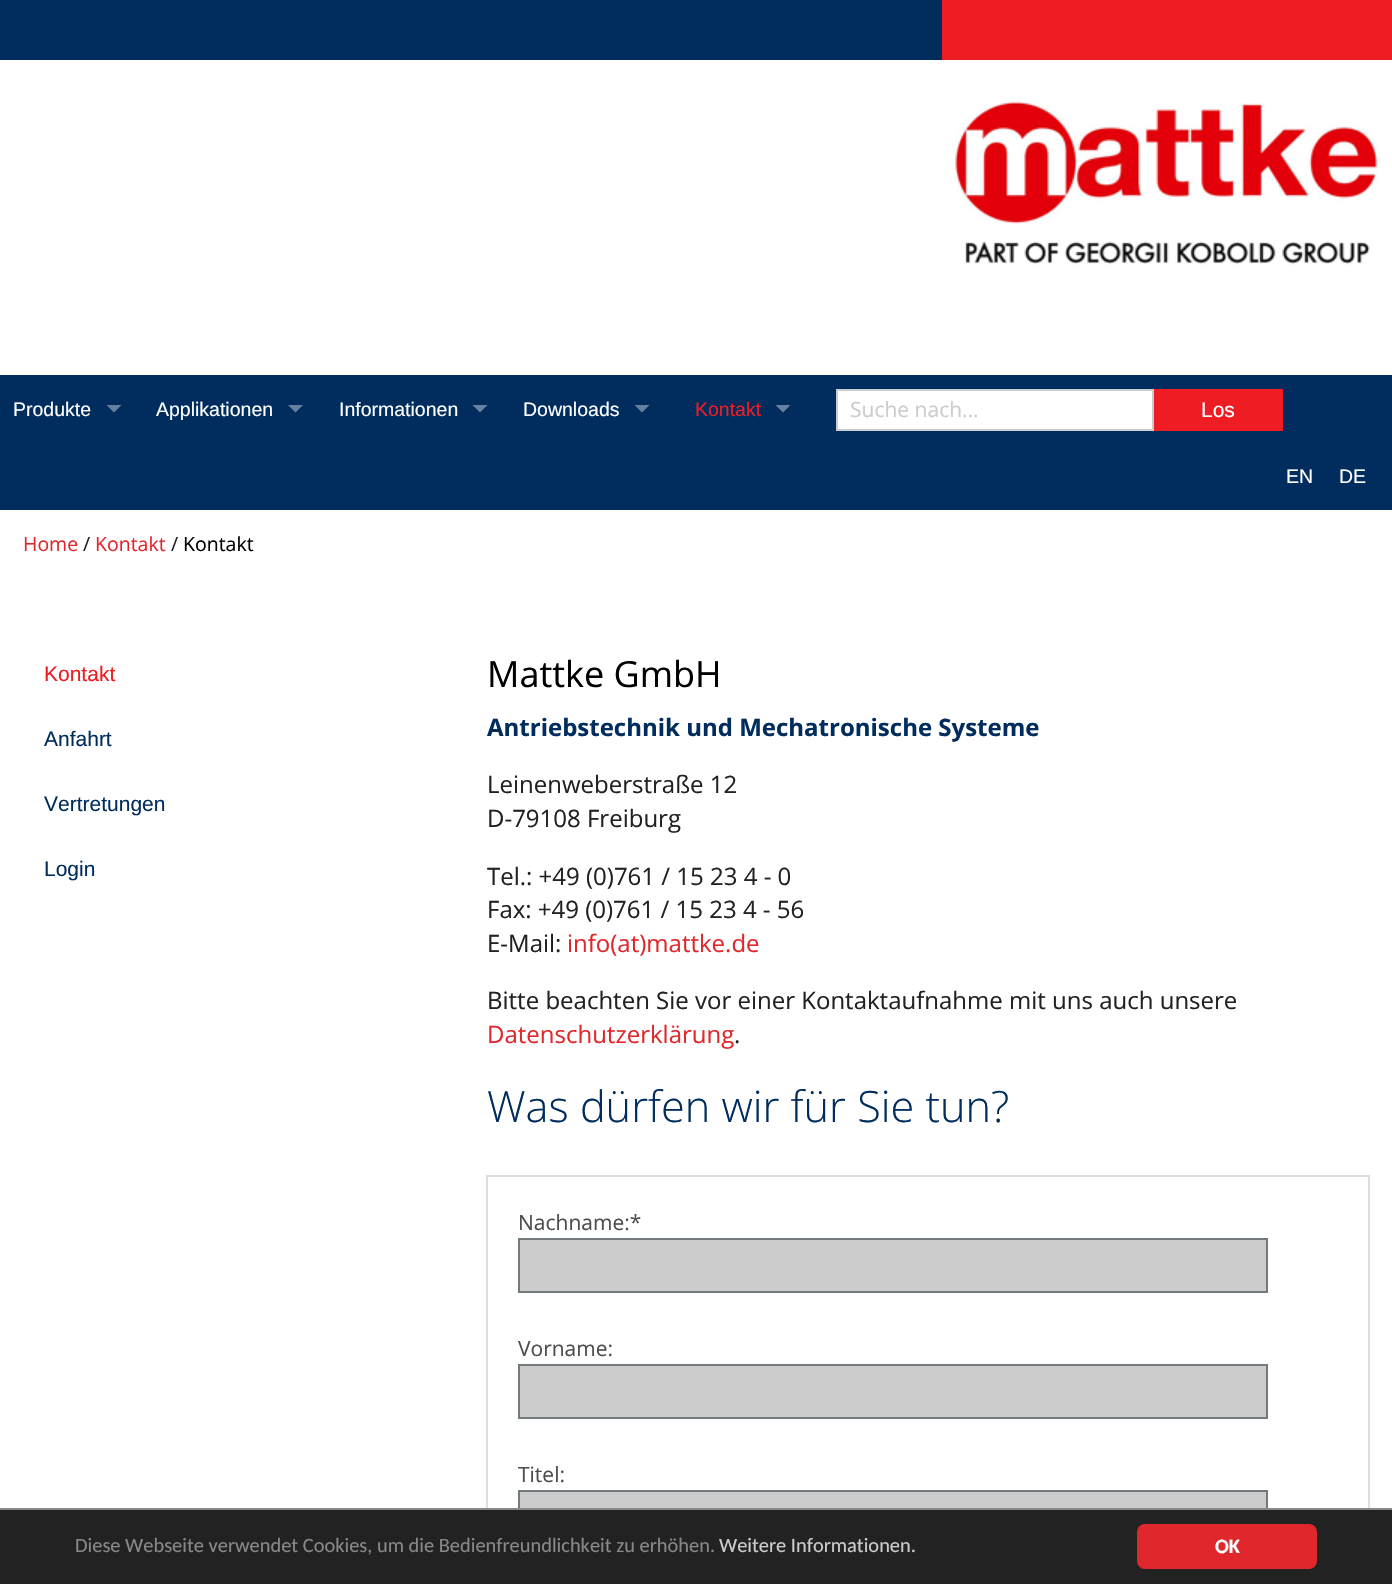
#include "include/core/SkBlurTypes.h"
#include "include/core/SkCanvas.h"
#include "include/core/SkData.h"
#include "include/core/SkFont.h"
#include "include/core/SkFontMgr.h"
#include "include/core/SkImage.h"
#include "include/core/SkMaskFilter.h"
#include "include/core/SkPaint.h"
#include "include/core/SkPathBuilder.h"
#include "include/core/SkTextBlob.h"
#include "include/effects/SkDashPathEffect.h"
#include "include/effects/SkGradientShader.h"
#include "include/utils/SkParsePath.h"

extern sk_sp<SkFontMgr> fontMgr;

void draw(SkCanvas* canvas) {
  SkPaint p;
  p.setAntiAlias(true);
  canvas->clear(SK_ColorWHITE);
  p.setColor(SkColorSetRGB(0, 45, 94));
  canvas->drawRect(SkRect::MakeLTRB(0, 0, 942, 60), p);
  p.setColor(SkColorSetRGB(238, 29, 35));
  canvas->drawRect(SkRect::MakeLTRB(942, 0, 1392, 60), p);
  canvas->drawImageRect(SkImages::DeferredFromEncodedData(SkData::MakeFromFileName("images/1.png")), SkRect::MakeLTRB(953, 101, 1380, 265), SkSamplingOptions());
  p.setColor(SkColorSetRGB(0, 45, 94));
  canvas->drawRect(SkRect::MakeLTRB(0, 375, 1392, 510), p);
  p.setColor(SkColorSetRGB(102, 129, 158));
  canvas->drawPath(SkPathBuilder().moveTo(106.5f, 405).lineTo(121.5f, 405).lineTo(114, 412.5f).close().detach(), p);
  canvas->drawPath(SkPathBuilder().moveTo(288, 405).lineTo(303, 405).lineTo(295.5f, 412.5f).close().detach(), p);
  canvas->drawPath(SkPathBuilder().moveTo(472.5f, 405).lineTo(487.5f, 405).lineTo(480, 412.5f).close().detach(), p);
  canvas->drawPath(SkPathBuilder().moveTo(634.5f, 405).lineTo(649.5f, 405).lineTo(642, 412.5f).close().detach(), p);
  canvas->drawPath(SkPathBuilder().moveTo(775.5f, 405).lineTo(790.5f, 405).lineTo(783, 412.5f).close().detach(), p);
  p.setColor(SK_ColorWHITE);
  canvas->drawRect(SkRect::MakeLTRB(837, 390, 1153, 430), p);
  p.setStyle(SkPaint::kStroke_Style);
  p.setStrokeWidth(2);
  p.setColor(SkColorSetRGB(204, 204, 204));
  canvas->drawRect(SkRect::MakeLTRB(837, 390, 1153, 430), p);
  p.setStyle(SkPaint::kFill_Style);
  p.setColor(SkColorSetRGB(238, 29, 35));
  canvas->drawRect(SkRect::MakeLTRB(1154, 389, 1283, 431), p);
  p.setStyle(SkPaint::kStroke_Style);
  p.setColor(SkColorSetRGB(221, 221, 221));
  canvas->drawRect(SkRect::MakeLTRB(487, 1176, 1369, 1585), p);
  p.setStyle(SkPaint::kFill_Style);
  p.setColor(SkColorSetRGB(204, 204, 204));
  canvas->drawRect(SkRect::MakeLTRB(519, 1239, 1267, 1292), p);
  p.setStyle(SkPaint::kStroke_Style);
  p.setColor(SkColorSetRGB(115, 122, 126));
  canvas->drawRect(SkRect::MakeLTRB(519, 1239, 1267, 1292), p);
  p.setStyle(SkPaint::kFill_Style);
  p.setColor(SkColorSetRGB(204, 204, 204));
  canvas->drawRect(SkRect::MakeLTRB(519, 1365, 1267, 1418), p);
  p.setStyle(SkPaint::kStroke_Style);
  p.setColor(SkColorSetRGB(115, 122, 126));
  canvas->drawRect(SkRect::MakeLTRB(519, 1365, 1267, 1418), p);
  p.setStyle(SkPaint::kFill_Style);
  p.setColor(SkColorSetRGB(204, 204, 204));
  canvas->drawRect(SkRect::MakeLTRB(520, 1492, 1266, 1508), p);
  p.setStyle(SkPaint::kStroke_Style);
  p.setColor(SkColorSetRGB(115, 122, 126));
  canvas->drawRect(SkRect::MakeLTRB(519, 1491, 1267, 1544), p);
  p.setStyle(SkPaint::kFill_Style);
  p.setColor(SkColorSetRGB(34, 34, 34));
  canvas->drawRect(SkRect::MakeLTRB(0, 1510, 1392, 1584), p);
  p.setColor(SkColorSetRGB(136, 136, 136));
  canvas->drawRect(SkRect::MakeLTRB(0, 1508, 1392, 1510), p);
  p.setColor(SkColorSetRGB(224, 39, 44));
  canvas->drawRoundRect(SkRect::MakeLTRB(1137, 1524, 1317, 1569), 8, 8, p);
  SkFont font1(fontMgr->matchFamilyStyle("Liberation Sans", SkFontStyle::Normal()), 19.5f);
  font1.setSubpixel(true);
  p.setColor(SK_ColorWHITE);
  canvas->drawString("Produkte", 13, 416, font1, p);
  canvas->drawString("Applikationen", 156, 416, font1, p);
  canvas->drawString("Informationen", 339, 416, font1, p);
  canvas->drawString("Downloads", 523, 416, font1, p);
  p.setColor(SkColorSetRGB(238, 29, 35));
  canvas->drawString("Kontakt", 695, 416, font1, p);
  SkFont font2(fontMgr->matchFamilyStyle("Open Sans", SkFontStyle::Normal()), 21);
  font2.setSubpixel(true);
  p.setColor(SkColorSetRGB(204, 204, 204));
  canvas->drawString("Suche nach...", 850, 417, font2, p);
  SkFont font3(fontMgr->matchFamilyStyle("Liberation Sans", SkFontStyle::Normal()), 21);
  font3.setSubpixel(true);
  p.setColor(SK_ColorWHITE);
  canvas->drawString("Los", 1201, 417, font3, p);
  canvas->drawString("EN", 1286, 483, font1, p);
  canvas->drawString("DE", 1339, 483, font1, p);
  SkFont font4(fontMgr->matchFamilyStyle("Open Sans", SkFontStyle::Normal()), 19.5f);
  font4.setSubpixel(true);
  p.setColor(SkColorSetRGB(224, 39, 44));
  canvas->drawString("Home", 23, 551, font4, p);
  p.setColor(SkColorSetRGB(34, 34, 34));
  canvas->drawString("/", 83, 551, font4, p);
  p.setColor(SkColorSetRGB(224, 39, 44));
  canvas->drawString("Kontakt", 95, 551, font4, p);
  p.setColor(SkColorSetRGB(34, 34, 34));
  canvas->drawString("/", 171, 551, font4, p);
  p.setColor(SK_ColorBLACK);
  canvas->drawString("Kontakt", 183, 551, font4, p);
  p.setColor(SkColorSetRGB(238, 29, 35));
  canvas->drawString("Kontakt", 44, 681, font3, p);
  p.setColor(SkColorSetRGB(0, 45, 94));
  canvas->drawString("Anfahrt", 44, 746, font3, p);
  canvas->drawString("Vertretungen", 44, 811, font3, p);
  canvas->drawString("Login", 44, 876, font3, p);
  SkFont font5(fontMgr->matchFamilyStyle("Open Sans", SkFontStyle::Normal()), 36);
  font5.setSubpixel(true);
  p.setColor(SK_ColorBLACK);
  canvas->drawString("Mattke GmbH", 487, 687, font5, p);
  SkFont font6(fontMgr->matchFamilyStyle("Open Sans", SkFontStyle::Bold()), 24);
  font6.setSubpixel(true);
  p.setColor(SkColorSetRGB(0, 45, 94));
  canvas->drawString("Antriebstechnik und Mechatronische Systeme", 487, 736, font6, p);
  SkFont font7(fontMgr->matchFamilyStyle("Open Sans", SkFontStyle::Normal()), 24);
  font7.setSubpixel(true);
  p.setColor(SkColorSetRGB(34, 34, 34));
  canvas->drawString("Leinenweberstraße 12", 487, 793, font7, p);
  canvas->drawString("D-79108 Freiburg", 487, 827, font7, p);
  canvas->drawString("Tel.: +49 (0)761 / 15 23 4 - 0", 487, 885, font7, p);
  canvas->drawString("Fax: +49 (0)761 / 15 23 4 - 56", 487, 918, font7, p);
  canvas->drawString("E-Mail:", 487, 952, font7, p);
  p.setColor(SkColorSetRGB(224, 39, 44));
  canvas->drawString("info(at)mattke.de", 567, 952, font7, p);
  p.setColor(SkColorSetRGB(34, 34, 34));
  canvas->drawString("Bitte beachten Sie vor einer Kontaktaufnahme mit uns auch unsere", 487, 1009, font7, p);
  p.setColor(SkColorSetRGB(224, 39, 44));
  canvas->drawString("Datenschutzerklärung", 487, 1043, font7, p);
  p.setColor(SkColorSetRGB(34, 34, 34));
  canvas->drawString(".", 734, 1043, font7, p);
  SkFont font8(fontMgr->matchFamilyStyle("Open Sans", SkFontStyle(300, SkFontStyle::kNormal_Width, SkFontStyle::kUpright_Slant)), 43.25f);
  font8.setSubpixel(true);
  p.setColor(SkColorSetRGB(0, 45, 94));
  canvas->drawString("Was dürfen wir für Sie tun?", 487, 1122, font8, p);
  p.setColor(SkColorSetRGB(77, 77, 77));
  canvas->drawString("Nachname:*", 518, 1230, font2, p);
  canvas->drawString("Vorname:", 518, 1356, font2, p);
  canvas->drawString("Titel:", 518, 1482, font2, p);
  SkFont font9(fontMgr->matchFamilyStyle("Carlito", SkFontStyle::Normal()), 20.4f);
  font9.setSubpixel(true);
  p.setColor(SkColorSetRGB(136, 136, 136));
  canvas->drawString("Diese Webseite verwendet Cookies, um die Bedienfreundlichkeit zu erhöhen.", 75, 1552, font9, p);
  p.setColor(SkColorSetRGB(204, 204, 204));
  canvas->drawString("Weitere Informationen.", 719, 1552, font9, p);
  SkFont font10(fontMgr->matchFamilyStyle("Carlito", SkFontStyle::Bold()), 20.4f);
  font10.setSubpixel(true);
  p.setColor(SK_ColorWHITE);
  canvas->drawString("OK", 1215, 1553, font10, p);
}
